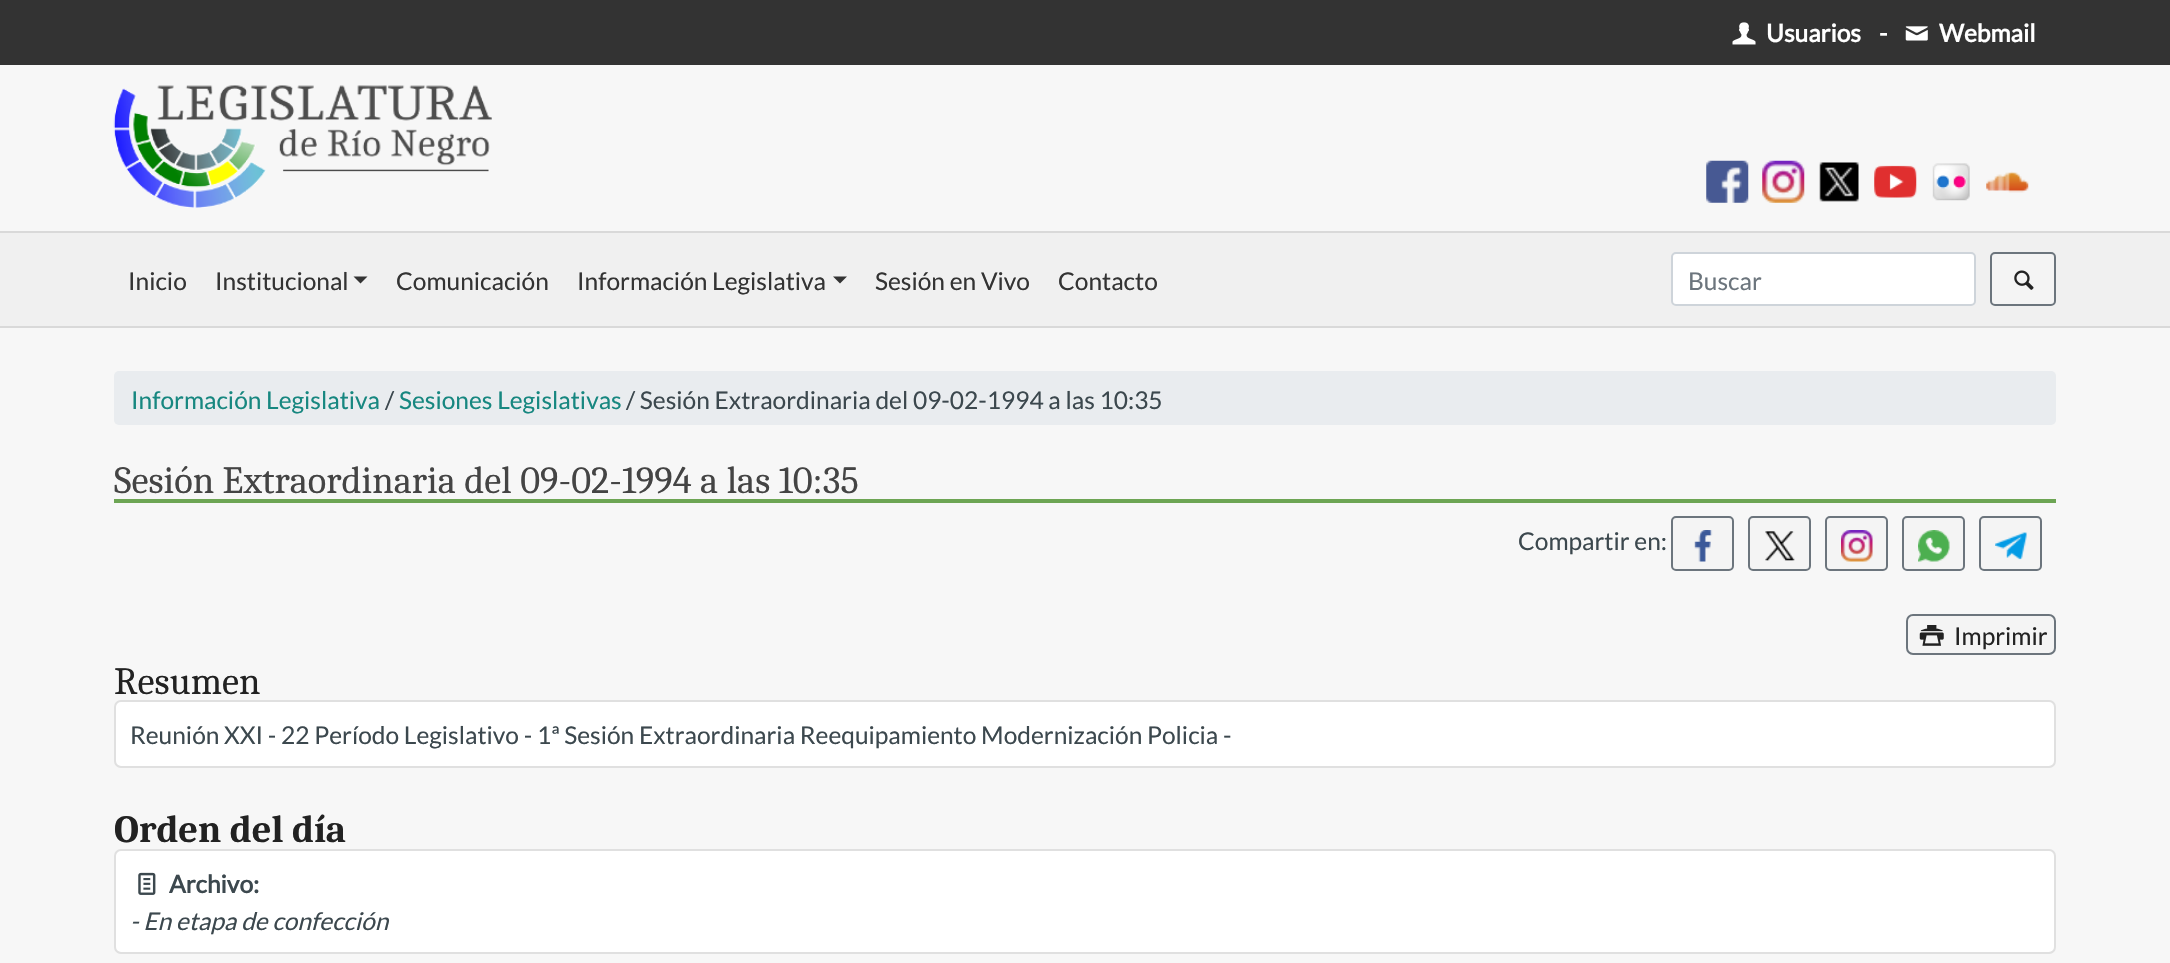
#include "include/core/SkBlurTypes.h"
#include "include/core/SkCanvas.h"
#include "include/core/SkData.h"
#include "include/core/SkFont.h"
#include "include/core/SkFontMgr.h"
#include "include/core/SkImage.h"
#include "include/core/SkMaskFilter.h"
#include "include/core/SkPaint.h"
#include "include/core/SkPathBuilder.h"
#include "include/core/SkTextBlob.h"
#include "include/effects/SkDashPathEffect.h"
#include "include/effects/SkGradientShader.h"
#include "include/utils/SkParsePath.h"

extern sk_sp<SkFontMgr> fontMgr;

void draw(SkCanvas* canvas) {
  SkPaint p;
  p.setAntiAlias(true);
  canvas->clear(SkColorSetRGB(247, 247, 247));
  p.setColor(SkColorSetRGB(51, 51, 51));
  canvas->drawRect(SkRect::MakeLTRB(0, 0, 2170, 65), p);
  canvas->drawImageRect(SkImages::DeferredFromEncodedData(SkData::MakeFromFileName("images/1.png")), SkRect::MakeLTRB(1732, 22, 1756, 45), SkSamplingOptions());
  canvas->drawImageRect(SkImages::DeferredFromEncodedData(SkData::MakeFromFileName("images/2.png")), SkRect::MakeLTRB(1905, 26, 1928, 41), SkSamplingOptions());
  canvas->drawImageRect(SkImages::DeferredFromEncodedData(SkData::MakeFromFileName("images/3.png")), SkRect::MakeLTRB(113, 85, 492, 208), SkSamplingOptions());
  canvas->drawImageRect(SkImages::DeferredFromEncodedData(SkData::MakeFromFileName("images/4.png")), SkRect::MakeLTRB(1706, 160, 1749, 203), SkSamplingOptions());
  canvas->drawImageRect(SkImages::DeferredFromEncodedData(SkData::MakeFromFileName("images/5.png")), SkRect::MakeLTRB(1762, 160, 1805, 203), SkSamplingOptions());
  canvas->drawImageRect(SkImages::DeferredFromEncodedData(SkData::MakeFromFileName("images/6.png")), SkRect::MakeLTRB(1819, 162, 1859, 202), SkSamplingOptions());
  canvas->drawImageRect(SkImages::DeferredFromEncodedData(SkData::MakeFromFileName("images/7.png")), SkRect::MakeLTRB(1874, 165, 1917, 198), SkSamplingOptions());
  canvas->drawImageRect(SkImages::DeferredFromEncodedData(SkData::MakeFromFileName("images/8.png")), SkRect::MakeLTRB(1932, 163, 1970, 201), SkSamplingOptions());
  canvas->drawImageRect(SkImages::DeferredFromEncodedData(SkData::MakeFromFileName("images/9.png")), SkRect::MakeLTRB(1986, 171, 2029, 193), SkSamplingOptions());
  p.setColor(SkColorSetRGB(240, 240, 240));
  canvas->drawRect(SkRect::MakeLTRB(0, 233, 2170, 326), p);
  p.setColor(SkColorSetRGB(217, 217, 217));
  canvas->drawRect(SkRect::MakeLTRB(0, 231, 2170, 233), p);
  canvas->drawRect(SkRect::MakeLTRB(0, 326, 2170, 328), p);
  p.setColor(SkColorSetRGB(51, 51, 51));
  canvas->drawPath(SkPathBuilder().moveTo(353.5f, 276.5f).lineTo(367.5f, 276.5f).lineTo(360.5f, 283.5f).close().detach(), p);
  canvas->drawPath(SkPathBuilder().moveTo(833, 276.5f).lineTo(847, 276.5f).lineTo(840, 283.5f).close().detach(), p);
  p.setColor(SK_ColorWHITE);
  canvas->drawRoundRect(SkRect::MakeLTRB(1672, 253, 1975, 305), 4, 4, p);
  p.setStyle(SkPaint::kStroke_Style);
  p.setStrokeWidth(2);
  p.setColor(SkColorSetRGB(206, 212, 218));
  canvas->drawRoundRect(SkRect::MakeLTRB(1672, 253, 1975, 305), 4, 4, p);
  p.setStyle(SkPaint::kFill_Style);
  p.setColor(SkColorSetRGB(244, 244, 244));
  canvas->drawRoundRect(SkRect::MakeLTRB(1991, 253, 2055, 305), 4, 4, p);
  p.setStyle(SkPaint::kStroke_Style);
  p.setColor(SkColorSetRGB(108, 117, 125));
  canvas->drawRoundRect(SkRect::MakeLTRB(1991, 253, 2055, 305), 4, 4, p);
  canvas->drawImageRect(SkImages::DeferredFromEncodedData(SkData::MakeFromFileName("images/10.png")), SkRect::MakeLTRB(2014, 270, 2034, 290), SkSamplingOptions());
  p.setStyle(SkPaint::kFill_Style);
  p.setColor(SkColorSetRGB(233, 236, 239));
  canvas->drawRoundRect(SkRect::MakeLTRB(114, 371, 2056, 425), 5, 5, p);
  p.setColor(SkColorSetRGB(109, 165, 84));
  canvas->drawRect(SkRect::MakeLTRB(114, 499, 2056, 503), p);
  p.setColor(SkColorSetRGB(244, 244, 244));
  canvas->drawRoundRect(SkRect::MakeLTRB(1672, 517, 1733, 570), 4, 4, p);
  p.setStyle(SkPaint::kStroke_Style);
  p.setColor(SkColorSetRGB(108, 117, 125));
  canvas->drawRoundRect(SkRect::MakeLTRB(1672, 517, 1733, 570), 4, 4, p);
  canvas->drawImageRect(SkImages::DeferredFromEncodedData(SkData::MakeFromFileName("images/11.png")), SkRect::MakeLTRB(1694, 530, 1713, 562), SkSamplingOptions());
  p.setStyle(SkPaint::kFill_Style);
  p.setColor(SkColorSetRGB(244, 244, 244));
  canvas->drawRoundRect(SkRect::MakeLTRB(1749, 517, 1810, 570), 4, 4, p);
  p.setStyle(SkPaint::kStroke_Style);
  p.setColor(SkColorSetRGB(108, 117, 125));
  canvas->drawRoundRect(SkRect::MakeLTRB(1749, 517, 1810, 570), 4, 4, p);
  canvas->drawImageRect(SkImages::DeferredFromEncodedData(SkData::MakeFromFileName("images/12.png")), SkRect::MakeLTRB(1765, 531, 1795, 561), SkSamplingOptions());
  p.setStyle(SkPaint::kFill_Style);
  p.setColor(SkColorSetRGB(244, 244, 244));
  canvas->drawRoundRect(SkRect::MakeLTRB(1826, 517, 1887, 570), 4, 4, p);
  p.setStyle(SkPaint::kStroke_Style);
  p.setColor(SkColorSetRGB(108, 117, 125));
  canvas->drawRoundRect(SkRect::MakeLTRB(1826, 517, 1887, 570), 4, 4, p);
  canvas->drawImageRect(SkImages::DeferredFromEncodedData(SkData::MakeFromFileName("images/13.png")), SkRect::MakeLTRB(1841, 530, 1873, 562), SkSamplingOptions());
  p.setStyle(SkPaint::kFill_Style);
  p.setColor(SkColorSetRGB(244, 244, 244));
  canvas->drawRoundRect(SkRect::MakeLTRB(1903, 517, 1964, 570), 4, 4, p);
  p.setStyle(SkPaint::kStroke_Style);
  p.setColor(SkColorSetRGB(108, 117, 125));
  canvas->drawRoundRect(SkRect::MakeLTRB(1903, 517, 1964, 570), 4, 4, p);
  canvas->drawImageRect(SkImages::DeferredFromEncodedData(SkData::MakeFromFileName("images/14.png")), SkRect::MakeLTRB(1918, 530, 1950, 562), SkSamplingOptions());
  p.setStyle(SkPaint::kFill_Style);
  p.setColor(SkColorSetRGB(244, 244, 244));
  canvas->drawRoundRect(SkRect::MakeLTRB(1980, 517, 2041, 570), 4, 4, p);
  p.setStyle(SkPaint::kStroke_Style);
  p.setColor(SkColorSetRGB(108, 117, 125));
  canvas->drawRoundRect(SkRect::MakeLTRB(1980, 517, 2041, 570), 4, 4, p);
  canvas->drawImageRect(SkImages::DeferredFromEncodedData(SkData::MakeFromFileName("images/15.png")), SkRect::MakeLTRB(1995, 532, 2027, 560), SkSamplingOptions());
  p.setStyle(SkPaint::kFill_Style);
  p.setColor(SkColorSetRGB(244, 244, 244));
  canvas->drawRoundRect(SkRect::MakeLTRB(1907, 615, 2055, 654), 6, 6, p);
  p.setStyle(SkPaint::kStroke_Style);
  p.setColor(SkColorSetRGB(108, 117, 125));
  canvas->drawRoundRect(SkRect::MakeLTRB(1907, 615, 2055, 654), 6, 6, p);
  canvas->drawImageRect(SkImages::DeferredFromEncodedData(SkData::MakeFromFileName("images/16.png")), SkRect::MakeLTRB(1919, 625, 1944, 646), SkSamplingOptions());
  p.setStyle(SkPaint::kFill_Style);
  p.setColor(SK_ColorWHITE);
  canvas->drawRoundRect(SkRect::MakeLTRB(114, 700, 2056, 768), 7, 7, p);
  p.setStyle(SkPaint::kStroke_Style);
  p.setColor(SkColorSetARGB(31, 0, 0, 0));
  canvas->drawRoundRect(SkRect::MakeLTRB(115, 701, 2055, 767), 6, 6, p);
  p.setStyle(SkPaint::kFill_Style);
  p.setColor(SK_ColorWHITE);
  canvas->drawRoundRect(SkRect::MakeLTRB(114, 849, 2056, 954), 7, 7, p);
  p.setStyle(SkPaint::kStroke_Style);
  p.setColor(SkColorSetARGB(31, 0, 0, 0));
  canvas->drawRoundRect(SkRect::MakeLTRB(115, 850, 2055, 953), 6, 6, p);
  canvas->drawImageRect(SkImages::DeferredFromEncodedData(SkData::MakeFromFileName("images/17.png")), SkRect::MakeLTRB(138, 872, 156, 895), SkSamplingOptions());
  SkFont font1(fontMgr->matchFamilyStyle("Lato", SkFontStyle::Bold()), 24.5f);
  font1.setSubpixel(true);
  p.setStyle(SkPaint::kFill_Style);
  p.setColor(SK_ColorWHITE);
  canvas->drawString("Usuarios", 1766, 42, font1, p);
  canvas->drawString("-", 1879, 42, font1, p);
  canvas->drawString("Webmail", 1939, 42, font1, p);
  SkFont font2(fontMgr->matchFamilyStyle("Lato", SkFontStyle::Normal()), 24.5f);
  font2.setSubpixel(true);
  p.setColor(SkColorSetRGB(51, 51, 51));
  canvas->drawString("Inicio", 128, 290, font2, p);
  canvas->drawString("Institucional", 215, 290, font2, p);
  canvas->drawString("Comunicación", 396, 290, font2, p);
  canvas->drawString("Información Legislativa", 577, 290, font2, p);
  canvas->drawString("Sesión en Vivo", 875, 290, font2, p);
  canvas->drawString("Contacto", 1058, 290, font2, p);
  p.setColor(SkColorSetRGB(108, 117, 125));
  canvas->drawString("Buscar", 1688, 290, font2, p);
  p.setColor(SkColorSetRGB(23, 135, 128));
  canvas->drawString("Información Legislativa", 131, 409, font2, p);
  p.setColor(SkColorSetRGB(60, 72, 78));
  canvas->drawString("/", 385, 409, font2, p);
  p.setColor(SkColorSetRGB(23, 135, 128));
  canvas->drawString("Sesiones Legislativas", 399, 409, font2, p);
  p.setColor(SkColorSetRGB(60, 72, 78));
  canvas->drawString("/ Sesión Extraordinaria del 09-02-1994 a las 10:35", 626, 409, font2, p);
  SkFont font3(fontMgr->matchFamilyStyle("Caladea", SkFontStyle::Normal()), 38.5f);
  font3.setSubpixel(true);
  p.setColor(SkColorSetRGB(68, 68, 68));
  canvas->drawString("Sesión Extraordinaria del 09-02-1994 a las 10:35", 114, 493, font3, p);
  p.setColor(SkColorSetRGB(60, 72, 78));
  canvas->drawString("Compartir en:", 1518, 550, font2, p);
  p.setColor(SkColorSetRGB(34, 34, 34));
  canvas->drawString("Imprimir", 1954, 645, font2, p);
  canvas->drawString("Resumen", 114, 694, font3, p);
  p.setColor(SkColorSetRGB(60, 72, 78));
  canvas->drawString("Reunión XXI - 22 Período Legislativo - 1ª Sesión Extraordinaria Reequipamiento Modernización Policia -", 130, 744, font2, p);
  SkFont font4(fontMgr->matchFamilyStyle("Caladea", SkFontStyle::Bold()), 38.5f);
  font4.setSubpixel(true);
  p.setColor(SkColorSetRGB(34, 34, 34));
  canvas->drawString("Orden del día", 114, 842, font4, p);
  p.setColor(SkColorSetRGB(60, 72, 78));
  canvas->drawString("Archivo:", 169, 893, font1, p);
  SkFont font5(fontMgr->matchFamilyStyle("Lato", SkFontStyle::Italic()), 24.5f);
  font5.setSubpixel(true);
  canvas->drawString("- En etapa de confección", 130, 930, font5, p);
}
